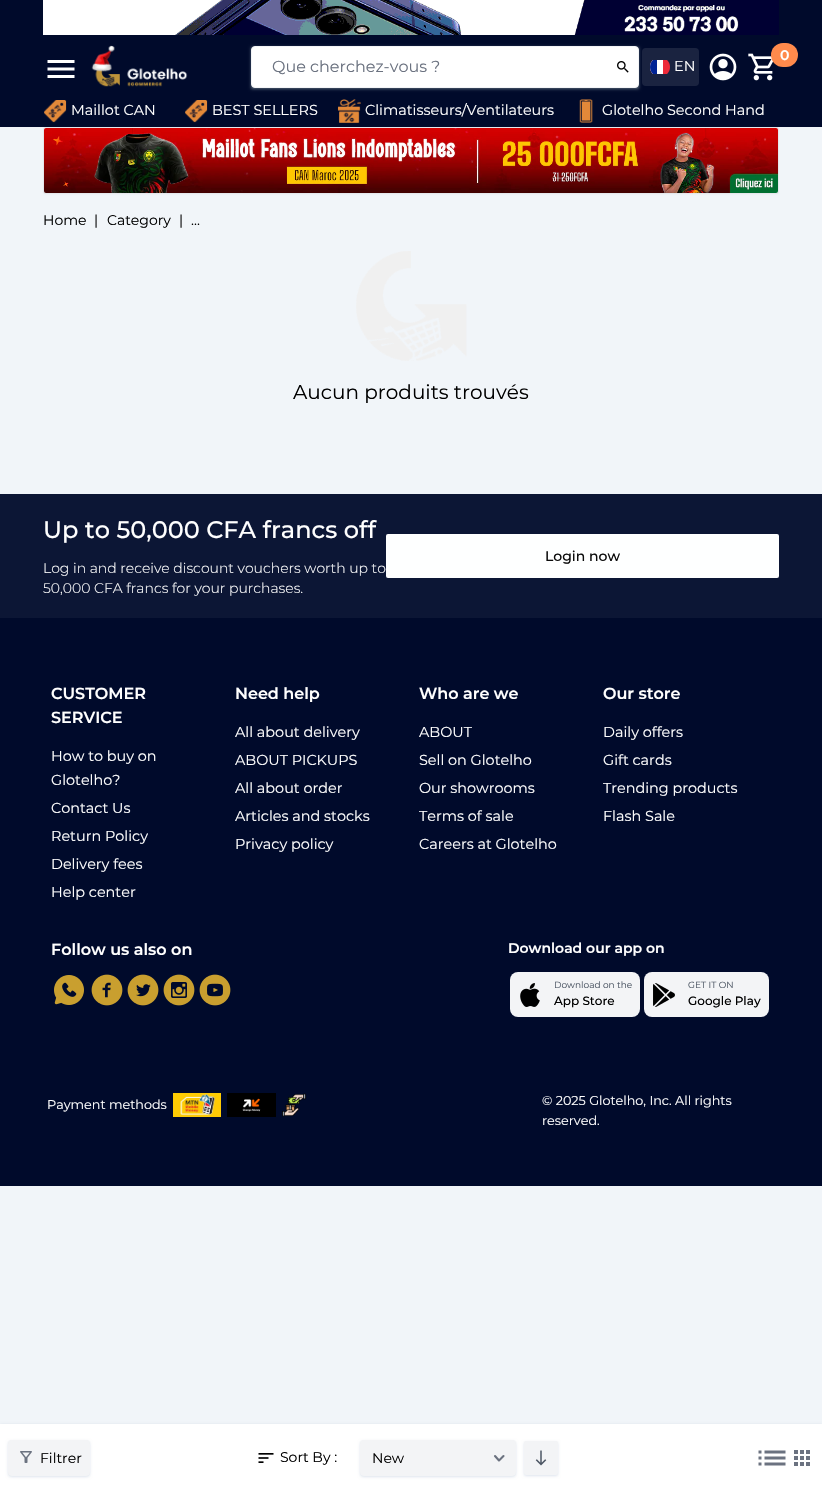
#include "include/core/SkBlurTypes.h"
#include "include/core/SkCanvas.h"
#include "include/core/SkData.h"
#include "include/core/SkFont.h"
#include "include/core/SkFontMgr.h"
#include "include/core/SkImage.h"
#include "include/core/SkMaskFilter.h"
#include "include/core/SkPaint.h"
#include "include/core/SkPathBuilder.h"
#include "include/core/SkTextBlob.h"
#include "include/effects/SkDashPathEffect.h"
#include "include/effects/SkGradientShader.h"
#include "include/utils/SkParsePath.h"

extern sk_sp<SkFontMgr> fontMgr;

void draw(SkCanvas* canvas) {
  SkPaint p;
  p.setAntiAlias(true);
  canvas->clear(SkColorSetRGB(241, 245, 249));
  p.setColor(SkColorSetRGB(226, 232, 240));
  p.setMaskFilter(SkMaskFilter::MakeBlur(kNormal_SkBlurStyle, 1));
  canvas->drawRoundRect(SkRect::MakeLTRB(44, 129, 778, 194), 1, 1, p);
  p.setMaskFilter(nullptr);
  p.setColor(SkColorSetRGB(0, 10, 43));
  canvas->drawRect(SkRect::MakeLTRB(0, 0, 822, 127), p);
  canvas->drawImageRect(SkImages::DeferredFromEncodedData(SkData::MakeFromFileName("images/1.png")), SkRect::MakeLTRB(43, 0, 779, 35), SkSamplingOptions());
  canvas->drawImageRect(SkImages::DeferredFromEncodedData(SkData::MakeFromFileName("images/2.png")), SkRect::MakeLTRB(47, 60, 75, 78), SkSamplingOptions());
  canvas->drawImageRect(SkImages::DeferredFromEncodedData(SkData::MakeFromFileName("images/3.png")), SkRect::MakeLTRB(91, 45, 188, 87), SkSamplingOptions());
  p.setColor(SkColorSetRGB(71, 85, 105));
  p.setMaskFilter(SkMaskFilter::MakeBlur(kNormal_SkBlurStyle, 1));
  canvas->drawRect(SkRect::MakeLTRB(252, 48, 638, 88), p);
  p.setMaskFilter(nullptr);
  p.setMaskFilter(SkMaskFilter::MakeBlur(kNormal_SkBlurStyle, 1.5f));
  canvas->drawRect(SkRect::MakeLTRB(251, 47, 639, 89), p);
  p.setMaskFilter(nullptr);
  p.setColor(SK_ColorWHITE);
  canvas->drawRoundRect(SkRect::MakeLTRB(251.5f, 46.5f, 638.5f, 87.5f), 3.5f, 3.5f, p);
  p.setStyle(SkPaint::kStroke_Style);
  p.setStrokeWidth(1);
  p.setColor(SkColorSetRGB(243, 244, 246));
  canvas->drawRoundRect(SkRect::MakeLTRB(251.5f, 46.5f, 638.5f, 87.5f), 3.5f, 3.5f, p);
  canvas->drawImageRect(SkImages::DeferredFromEncodedData(SkData::MakeFromFileName("images/4.png")), SkRect::MakeLTRB(617, 61, 629, 73), SkSamplingOptions());
  p.setStyle(SkPaint::kFill_Style);
  p.setColor(SkColorSetRGB(26, 35, 64));
  canvas->drawRoundRect(SkRect::MakeLTRB(642, 48, 699, 86), 4, 4, p);
  canvas->save();
  canvas->clipPath(SkPathBuilder().moveTo(660, 57).cubicTo(665.5f, 57, 670, 61.5f, 670, 67).cubicTo(670, 72.5f, 665.5f, 77, 660, 77).cubicTo(654.5f, 77, 650, 72.5f, 650, 67).cubicTo(650, 61.5f, 654.5f, 57, 660, 57).close().detach(), true);
  p.setColor(SkColorSetRGB(237, 41, 57));
  canvas->drawRect(SkRect::MakeLTRB(650, 60, 670, 74), p);
  p.setColor(SK_ColorWHITE);
  canvas->drawRect(SkRect::MakeLTRB(650, 60, 663, 74), p);
  p.setColor(SkColorSetRGB(0, 35, 149));
  canvas->drawRect(SkRect::MakeLTRB(650, 60, 657, 74), p);
  canvas->restore();
  canvas->drawImageRect(SkImages::DeferredFromEncodedData(SkData::MakeFromFileName("images/5.png")), SkRect::MakeLTRB(709, 53, 737, 81), SkSamplingOptions());
  canvas->drawImageRect(SkImages::DeferredFromEncodedData(SkData::MakeFromFileName("images/6.png")), SkRect::MakeLTRB(748, 53, 774, 81), SkSamplingOptions());
  p.setColor(SkColorSetRGB(255, 138, 76));
  canvas->drawRoundRect(SkRect::MakeLTRB(771, 43, 798, 67), 12, 12, p);
  canvas->drawImageRect(SkImages::DeferredFromEncodedData(SkData::MakeFromFileName("images/7.png")), SkRect::MakeLTRB(44, 100, 67, 123), SkSamplingOptions());
  canvas->drawImageRect(SkImages::DeferredFromEncodedData(SkData::MakeFromFileName("images/8.png")), SkRect::MakeLTRB(185, 100, 208, 123), SkSamplingOptions());
  canvas->drawImageRect(SkImages::DeferredFromEncodedData(SkData::MakeFromFileName("images/9.png")), SkRect::MakeLTRB(337, 99, 361, 123), SkSamplingOptions());
  canvas->drawImageRect(SkImages::DeferredFromEncodedData(SkData::MakeFromFileName("images/10.png")), SkRect::MakeLTRB(579, 99, 593, 123), SkSamplingOptions());
  p.setColor(SK_ColorWHITE);
  canvas->drawRoundRect(SkRect::MakeLTRB(43.5f, 127.5f, 778.5f, 193.5f), 1.5f, 1.5f, p);
  p.setStyle(SkPaint::kStroke_Style);
  p.setColor(SkColorSetRGB(229, 231, 235));
  canvas->drawRoundRect(SkRect::MakeLTRB(43.5f, 127.5f, 778.5f, 193.5f), 1.5f, 1.5f, p);
  canvas->drawImageRect(SkImages::DeferredFromEncodedData(SkData::MakeFromFileName("images/11.png")), SkRect::MakeLTRB(44, 128, 778, 193), SkSamplingOptions());
  canvas->drawImageRect(SkImages::DeferredFromEncodedData(SkData::MakeFromFileName("images/12.png")), SkRect::MakeLTRB(356, 251, 467, 361), SkSamplingOptions());
  p.setStyle(SkPaint::kFill_Style);
  p.setColor(SkColorSetRGB(203, 213, 225));
  p.setMaskFilter(SkMaskFilter::MakeBlur(kNormal_SkBlurStyle, 1.5f));
  canvas->drawRect(SkRect::MakeLTRB(0, 1425, 822, 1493), p);
  p.setMaskFilter(nullptr);
  p.setColor(SK_ColorWHITE);
  canvas->drawRect(SkRect::MakeLTRB(0, 1424, 822, 1492), p);
  p.setColor(SkColorSetRGB(226, 232, 240));
  p.setMaskFilter(SkMaskFilter::MakeBlur(kNormal_SkBlurStyle, 1));
  canvas->drawRoundRect(SkRect::MakeLTRB(9, 1442, 89, 1476), 3, 3, p);
  p.setMaskFilter(nullptr);
  p.setMaskFilter(SkMaskFilter::MakeBlur(kNormal_SkBlurStyle, 1.5f));
  canvas->drawRoundRect(SkRect::MakeLTRB(8, 1441, 90, 1477), 4, 4, p);
  p.setMaskFilter(nullptr);
  p.setColor(SkColorSetRGB(243, 244, 246));
  canvas->drawRoundRect(SkRect::MakeLTRB(8, 1440, 90, 1476), 4, 4, p);
  canvas->drawImageRect(SkImages::DeferredFromEncodedData(SkData::MakeFromFileName("images/13.png")), SkRect::MakeLTRB(20, 1451, 32, 1463), SkSamplingOptions());
  canvas->drawImageRect(SkImages::DeferredFromEncodedData(SkData::MakeFromFileName("images/14.png")), SkRect::MakeLTRB(258, 1453, 274, 1463), SkSamplingOptions());
  p.setColor(SkColorSetRGB(226, 232, 240));
  p.setMaskFilter(SkMaskFilter::MakeBlur(kNormal_SkBlurStyle, 1));
  canvas->drawRoundRect(SkRect::MakeLTRB(361, 1442, 515, 1476), 3, 3, p);
  p.setMaskFilter(nullptr);
  p.setMaskFilter(SkMaskFilter::MakeBlur(kNormal_SkBlurStyle, 1.5f));
  canvas->drawRoundRect(SkRect::MakeLTRB(360, 1441, 516, 1477), 4, 4, p);
  p.setMaskFilter(nullptr);
  p.setColor(SkColorSetRGB(243, 244, 246));
  canvas->drawRoundRect(SkRect::MakeLTRB(360, 1440, 516, 1476), 4, 4, p);
  p.setStyle(SkPaint::kStroke_Style);
  p.setStrokeWidth(2.1f);
  p.setStrokeCap(SkPaint::kRound_Cap);
  p.setStrokeJoin(SkPaint::kRound_Join);
  p.setColor(SkColorSetRGB(107, 114, 128));
  canvas->drawPath(SkPathBuilder().moveTo(495, 1456).lineTo(499, 1460.5f).lineTo(503.5f, 1456).detach(), p);
  p.setStyle(SkPaint::kFill_Style);
  p.setColor(SkColorSetRGB(226, 232, 240));
  p.setMaskFilter(SkMaskFilter::MakeBlur(kNormal_SkBlurStyle, 1));
  canvas->drawRoundRect(SkRect::MakeLTRB(525, 1443, 557, 1475), 1, 1, p);
  p.setMaskFilter(nullptr);
  p.setMaskFilter(SkMaskFilter::MakeBlur(kNormal_SkBlurStyle, 1.5f));
  canvas->drawRoundRect(SkRect::MakeLTRB(524, 1442, 558, 1476), 2, 2, p);
  p.setMaskFilter(nullptr);
  p.setColor(SkColorSetRGB(243, 244, 246));
  canvas->drawRoundRect(SkRect::MakeLTRB(524, 1441, 558, 1475), 2, 2, p);
  canvas->drawImageRect(SkImages::DeferredFromEncodedData(SkData::MakeFromFileName("images/15.png")), SkRect::MakeLTRB(535, 1450, 547, 1466), SkSamplingOptions());
  canvas->drawImageRect(SkImages::DeferredFromEncodedData(SkData::MakeFromFileName("images/16.png")), SkRect::MakeLTRB(758, 1450, 786, 1466), SkSamplingOptions());
  canvas->drawImageRect(SkImages::DeferredFromEncodedData(SkData::MakeFromFileName("images/17.png")), SkRect::MakeLTRB(794, 1450, 810, 1466), SkSamplingOptions());
  p.setColor(SkColorSetRGB(12, 22, 53));
  canvas->drawRect(SkRect::MakeLTRB(0, 494, 822, 618), p);
  p.setColor(SkColorSetRGB(254, 255, 255));
  canvas->drawRoundRect(SkRect::MakeLTRB(386, 534, 779, 578), 2, 2, p);
  p.setColor(SkColorSetRGB(0, 10, 43));
  canvas->drawRect(SkRect::MakeLTRB(0, 618, 822, 1186), p);
  canvas->drawImageRect(SkImages::DeferredFromEncodedData(SkData::MakeFromFileName("images/18.png")), SkRect::MakeLTRB(54, 975, 84, 1005), SkSamplingOptions());
  canvas->drawImageRect(SkImages::DeferredFromEncodedData(SkData::MakeFromFileName("images/19.png")), SkRect::MakeLTRB(91, 974, 123, 1006), SkSamplingOptions());
  canvas->drawImageRect(SkImages::DeferredFromEncodedData(SkData::MakeFromFileName("images/20.png")), SkRect::MakeLTRB(127, 974, 159, 1006), SkSamplingOptions());
  canvas->drawImageRect(SkImages::DeferredFromEncodedData(SkData::MakeFromFileName("images/21.png")), SkRect::MakeLTRB(163, 974, 195, 1006), SkSamplingOptions());
  canvas->drawImageRect(SkImages::DeferredFromEncodedData(SkData::MakeFromFileName("images/22.png")), SkRect::MakeLTRB(199, 974, 231, 1006), SkSamplingOptions());
  p.setColor(SkColorSetRGB(243, 244, 246));
  canvas->drawRoundRect(SkRect::MakeLTRB(510, 972, 640, 1017), 8, 8, p);
  canvas->drawImageRect(SkImages::DeferredFromEncodedData(SkData::MakeFromFileName("images/23.png")), SkRect::MakeLTRB(520, 983, 540, 1007), SkSamplingOptions());
  canvas->drawRoundRect(SkRect::MakeLTRB(644, 972, 769, 1017), 8, 8, p);
  canvas->drawImageRect(SkImages::DeferredFromEncodedData(SkData::MakeFromFileName("images/24.png")), SkRect::MakeLTRB(653, 983, 675, 1007), SkSamplingOptions());
  canvas->drawImageRect(SkImages::DeferredFromEncodedData(SkData::MakeFromFileName("images/25.png")), SkRect::MakeLTRB(173, 1093, 221, 1117), SkSamplingOptions());
  canvas->drawImageRect(SkImages::DeferredFromEncodedData(SkData::MakeFromFileName("images/26.png")), SkRect::MakeLTRB(227, 1093, 276, 1117), SkSamplingOptions());
  canvas->drawImageRect(SkImages::DeferredFromEncodedData(SkData::MakeFromFileName("images/27.png")), SkRect::MakeLTRB(282, 1093, 306, 1117), SkSamplingOptions());
  SkFont font1(fontMgr->matchFamilyStyle("Montserrat", SkFontStyle::Normal()), 16);
  font1.setSubpixel(true);
  p.setColor(SkColorSetRGB(107, 114, 128));
  canvas->drawString("Que cherchez-vous ?", 272, 72, font1, p);
  SkFont font2(fontMgr->matchFamilyStyle("Montserrat", SkFontStyle::Normal()), 14.4f);
  font2.setSubpixel(true);
  p.setColor(SK_ColorWHITE);
  canvas->drawString("EN", 674, 71, font2, p);
  SkFont font3(fontMgr->matchFamilyStyle("Montserrat", SkFontStyle(600, SkFontStyle::kNormal_Width, SkFontStyle::kUpright_Slant)), 14);
  font3.setSubpixel(true);
  canvas->drawString("0", 780, 60, font3, p);
  canvas->drawString("Maillot CAN", 71, 115, font2, p);
  canvas->drawString("BEST SELLERS", 212, 115, font2, p);
  canvas->drawString("Climatisseurs/Ventilateurs", 365, 115, font2, p);
  canvas->drawString("Glotelho Second Hand", 602, 115, font2, p);
  SkFont font4(fontMgr->matchFamilyStyle("Montserrat", SkFontStyle::Normal()), 14);
  font4.setSubpixel(true);
  p.setColor(SK_ColorBLACK);
  canvas->drawString("Home", 43, 225, font4, p);
  canvas->drawString("|", 94, 225, font4, p);
  canvas->drawString("Category", 107, 225, font4, p);
  canvas->drawString("|", 179, 225, font4, p);
  canvas->drawString("...", 191, 225, font4, p);
  SkFont font5(fontMgr->matchFamilyStyle("Montserrat", SkFontStyle::Normal()), 20);
  font5.setSubpixel(true);
  canvas->drawString("Aucun produits trouvés", 293, 399, font5, p);
  canvas->drawString("Filtrer", 40, 1463, font4, p);
  canvas->drawString("Sort By :", 280, 1462, font4, p);
  canvas->drawString("New", 372, 1463, font4, p);
  SkFont font6(fontMgr->matchFamilyStyle("Montserrat", SkFontStyle(500, SkFontStyle::kNormal_Width, SkFontStyle::kUpright_Slant)), 24);
  font6.setSubpixel(true);
  p.setColor(SK_ColorWHITE);
  canvas->drawString("Up to 50,000 CFA francs off", 43, 538, font6, p);
  SkFont font7(fontMgr->matchFamilyStyle("Montserrat", SkFontStyle(300, SkFontStyle::kNormal_Width, SkFontStyle::kUpright_Slant)), 14);
  font7.setSubpixel(true);
  canvas->drawString("Log in and receive discount vouchers worth up to", 43, 573, font7, p);
  canvas->drawString("50,000 CFA francs for your purchases.", 43, 593, font7, p);
  SkFont font8(fontMgr->matchFamilyStyle("Montserrat", SkFontStyle(500, SkFontStyle::kNormal_Width, SkFontStyle::kUpright_Slant)), 14);
  font8.setSubpixel(true);
  p.setColor(SkColorSetRGB(12, 12, 12));
  canvas->drawString("Login now", 545, 561, font8, p);
  SkFont font9(fontMgr->matchFamilyStyle("Montserrat", SkFontStyle(600, SkFontStyle::kNormal_Width, SkFontStyle::kUpright_Slant)), 16);
  font9.setSubpixel(true);
  p.setColor(SK_ColorWHITE);
  canvas->drawString("CUSTOMER", 51, 699, font9, p);
  canvas->drawString("SERVICE", 51, 723, font9, p);
  canvas->drawString("How to buy on", 51, 761, font2, p);
  canvas->drawString("Glotelho?", 51, 785, font2, p);
  canvas->drawString("Contact Us", 51, 813, font2, p);
  canvas->drawString("Return Policy", 51, 841, font2, p);
  canvas->drawString("Delivery fees", 51, 869, font2, p);
  canvas->drawString("Help center", 51, 897, font2, p);
  canvas->drawString("Need help", 235, 699, font9, p);
  canvas->drawString("All about delivery", 235, 737, font2, p);
  canvas->drawString("ABOUT PICKUPS", 235, 765, font2, p);
  canvas->drawString("All about order", 235, 793, font2, p);
  canvas->drawString("Articles and stocks", 235, 821, font2, p);
  canvas->drawString("Privacy policy", 235, 849, font2, p);
  canvas->drawString("Who are we", 419, 699, font9, p);
  canvas->drawString("ABOUT", 419, 737, font2, p);
  canvas->drawString("Sell on Glotelho", 419, 765, font2, p);
  canvas->drawString("Our showrooms", 419, 793, font2, p);
  canvas->drawString("Terms of sale", 419, 821, font2, p);
  canvas->drawString("Careers at Glotelho", 419, 849, font2, p);
  canvas->drawString("Our store", 603, 699, font9, p);
  canvas->drawString("Daily offers", 603, 737, font2, p);
  canvas->drawString("Gift cards", 603, 765, font2, p);
  canvas->drawString("Trending products", 603, 793, font2, p);
  canvas->drawString("Flash Sale", 603, 821, font2, p);
  canvas->drawString("Follow us also on", 51, 955, font9, p);
  canvas->drawString("Download our app on", 508, 953, font3, p);
  SkFont font10(fontMgr->matchFamilyStyle("Montserrat", SkFontStyle::Normal()), 9);
  font10.setSubpixel(true);
  p.setColor(SkColorSetRGB(75, 85, 99));
  canvas->drawString("Download on the", 554, 988, font10, p);
  SkFont font11(fontMgr->matchFamilyStyle("Montserrat", SkFontStyle(500, SkFontStyle::kNormal_Width, SkFontStyle::kUpright_Slant)), 12);
  font11.setSubpixel(true);
  p.setColor(SK_ColorBLACK);
  canvas->drawString("App Store", 554, 1005, font11, p);
  p.setColor(SkColorSetRGB(75, 85, 99));
  canvas->drawString("GET IT ON", 688, 988, font10, p);
  p.setColor(SK_ColorBLACK);
  canvas->drawString("Google Play", 688, 1005, font11, p);
  SkFont font12(fontMgr->matchFamilyStyle("Montserrat", SkFontStyle::Normal()), 12.75f);
  font12.setSubpixel(true);
  p.setColor(SK_ColorWHITE);
  canvas->drawString("Payment methods", 47, 1109, font12, p);
  canvas->drawString("© 2025 Glotelho, Inc. All rights", 542, 1105, font12, p);
  canvas->drawString("reserved.", 542, 1125, font12, p);
}
